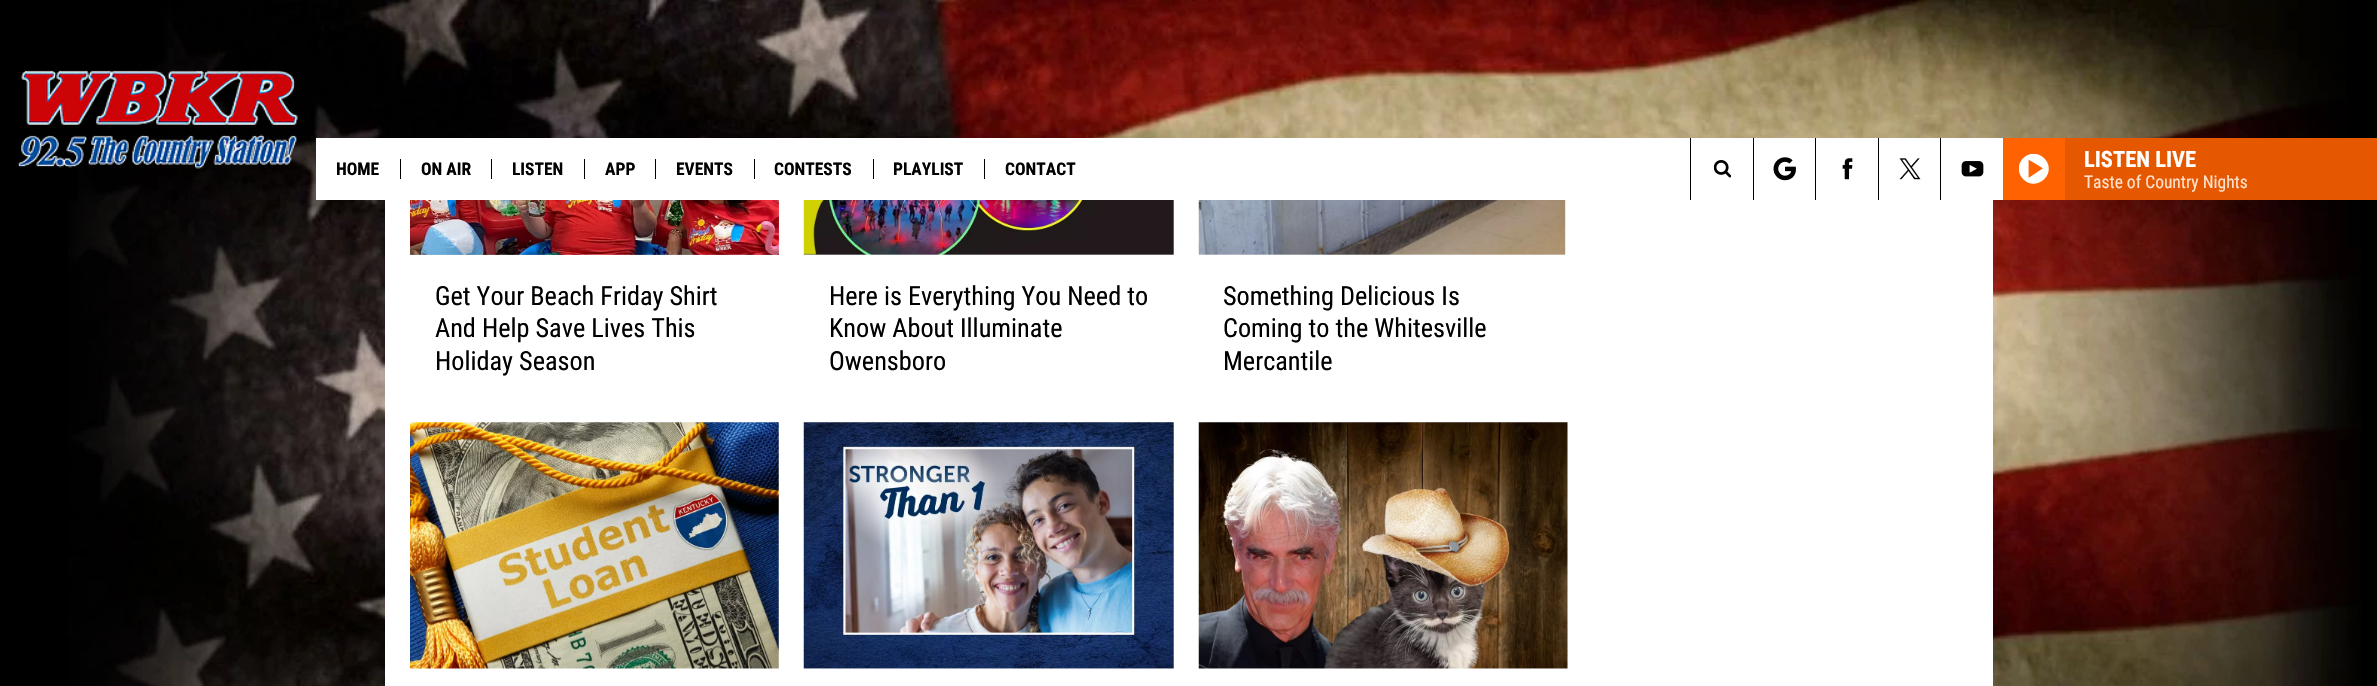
#include "include/core/SkBlurTypes.h"
#include "include/core/SkCanvas.h"
#include "include/core/SkData.h"
#include "include/core/SkFont.h"
#include "include/core/SkFontMgr.h"
#include "include/core/SkImage.h"
#include "include/core/SkMaskFilter.h"
#include "include/core/SkPaint.h"
#include "include/core/SkPathBuilder.h"
#include "include/core/SkTextBlob.h"
#include "include/effects/SkDashPathEffect.h"
#include "include/effects/SkGradientShader.h"
#include "include/utils/SkParsePath.h"

extern sk_sp<SkFontMgr> fontMgr;

void draw(SkCanvas* canvas) {
  SkPaint p;
  p.setAntiAlias(true);
  canvas->clear(SK_ColorBLACK);
  canvas->drawImageRect(SkImages::DeferredFromEncodedData(SkData::MakeFromFileName("images/1.png")), SkRect::MakeLTRB(68, 200, 2362, 686), SkSamplingOptions());
  canvas->drawImageRect(SkImages::DeferredFromEncodedData(SkData::MakeFromFileName("images/2.png")), SkRect::MakeLTRB(78, 0, 2347, 200), SkSamplingOptions());
  canvas->drawImageRect(SkImages::DeferredFromEncodedData(SkData::MakeFromFileName("images/3.png")), SkRect::MakeLTRB(18, 70, 298, 169), SkSamplingOptions());
  p.setColor(SK_ColorWHITE);
  canvas->drawRect(SkRect::MakeLTRB(316, 138, 2003, 200), p);
  p.setColor(SK_ColorBLACK);
  canvas->drawRect(SkRect::MakeLTRB(400, 159, 401, 179), p);
  canvas->drawRect(SkRect::MakeLTRB(491, 159, 492, 179), p);
  canvas->drawRect(SkRect::MakeLTRB(584, 159, 585, 179), p);
  canvas->drawRect(SkRect::MakeLTRB(655, 159, 656, 179), p);
  canvas->drawRect(SkRect::MakeLTRB(754, 159, 755, 179), p);
  canvas->drawRect(SkRect::MakeLTRB(873, 159, 874, 179), p);
  canvas->drawRect(SkRect::MakeLTRB(984, 159, 985, 179), p);
  canvas->drawRect(SkRect::MakeLTRB(1690, 138, 1691, 200), p);
  canvas->drawImageRect(SkImages::DeferredFromEncodedData(SkData::MakeFromFileName("images/4.png")), SkRect::MakeLTRB(1714, 160, 1731, 178), SkSamplingOptions());
  canvas->drawRect(SkRect::MakeLTRB(1753, 138, 1754, 200), p);
  canvas->drawImageRect(SkImages::DeferredFromEncodedData(SkData::MakeFromFileName("images/5.png")), SkRect::MakeLTRB(1773, 157, 1796, 181), SkSamplingOptions());
  canvas->drawRect(SkRect::MakeLTRB(1815, 138, 1816, 200), p);
  canvas->drawImageRect(SkImages::DeferredFromEncodedData(SkData::MakeFromFileName("images/6.png")), SkRect::MakeLTRB(1842, 158, 1853, 180), SkSamplingOptions());
  canvas->drawRect(SkRect::MakeLTRB(1878, 138, 1879, 200), p);
  canvas->drawImageRect(SkImages::DeferredFromEncodedData(SkData::MakeFromFileName("images/7.png")), SkRect::MakeLTRB(1899, 158, 1921, 180), SkSamplingOptions());
  canvas->drawRect(SkRect::MakeLTRB(1940, 138, 1941, 200), p);
  canvas->drawImageRect(SkImages::DeferredFromEncodedData(SkData::MakeFromFileName("images/8.png")), SkRect::MakeLTRB(1961, 161, 1984, 177), SkSamplingOptions());
  p.setColor(SkColorSetRGB(255, 98, 0));
  canvas->drawRect(SkRect::MakeLTRB(2003, 138, 2065, 200), p);
  canvas->drawImageRect(SkImages::DeferredFromEncodedData(SkData::MakeFromFileName("images/9.png")), SkRect::MakeLTRB(2019, 154, 2049, 184), SkSamplingOptions());
  p.setColor(SkColorSetRGB(230, 88, 0));
  canvas->drawRect(SkRect::MakeLTRB(2065, 138, 2377, 200), p);
  p.setColor(SK_ColorWHITE);
  canvas->drawRect(SkRect::MakeLTRB(385, 200, 1993, 686), p);
  canvas->drawImageRect(SkImages::DeferredFromEncodedData(SkData::MakeFromFileName("images/10.png")), SkRect::MakeLTRB(410, 200, 779, 255), SkSamplingOptions());
  canvas->drawImageRect(SkImages::DeferredFromEncodedData(SkData::MakeFromFileName("images/11.png")), SkRect::MakeLTRB(803, 200, 1174, 255), SkSamplingOptions());
  canvas->drawImageRect(SkImages::DeferredFromEncodedData(SkData::MakeFromFileName("images/12.png")), SkRect::MakeLTRB(1198, 200, 1567, 255), SkSamplingOptions());
  canvas->drawImageRect(SkImages::DeferredFromEncodedData(SkData::MakeFromFileName("images/13.png")), SkRect::MakeLTRB(410, 422, 779, 669), SkSamplingOptions());
  canvas->drawImageRect(SkImages::DeferredFromEncodedData(SkData::MakeFromFileName("images/14.png")), SkRect::MakeLTRB(803, 422, 1174, 669), SkSamplingOptions());
  canvas->drawImageRect(SkImages::DeferredFromEncodedData(SkData::MakeFromFileName("images/15.png")), SkRect::MakeLTRB(1198, 422, 1568, 669), SkSamplingOptions());
  SkFont font1(fontMgr->matchFamilyStyle("Roboto Condensed", SkFontStyle::Bold()), 17.5f);
  font1.setSubpixel(true);
  p.setColor(SK_ColorBLACK);
  canvas->drawString("HOME", 336, 175, font1, p);
  canvas->drawString("ON AIR", 421, 175, font1, p);
  canvas->drawString("LISTEN", 512, 175, font1, p);
  canvas->drawString("APP", 605, 175, font1, p);
  canvas->drawString("EVENTS", 676, 175, font1, p);
  canvas->drawString("CONTESTS", 774, 175, font1, p);
  canvas->drawString("PLAYLIST", 893, 175, font1, p);
  canvas->drawString("CONTACT", 1005, 175, font1, p);
  SkFont font2(fontMgr->matchFamilyStyle("Roboto Condensed", SkFontStyle::Bold()), 22.5f);
  font2.setSubpixel(true);
  p.setColor(SK_ColorWHITE);
  canvas->drawString("LISTEN LIVE", 2084, 167, font2, p);
  SkFont font3(fontMgr->matchFamilyStyle("Roboto Condensed", SkFontStyle::Normal()), 17.5f);
  font3.setSubpixel(true);
  p.setColor(SkColorSetRGB(255, 224, 204));
  canvas->drawString("Taste of Country Nights", 2084, 188, font3, p);
  SkFont font4(fontMgr->matchFamilyStyle("Roboto Condensed", SkFontStyle::Normal()), 26.25f);
  font4.setSubpixel(true);
  p.setColor(SK_ColorBLACK);
  canvas->drawString("Get Your Beach Friday Shirt", 435, 305, font4, p);
  canvas->drawString("And Help Save Lives This", 435, 337, font4, p);
  canvas->drawString("Holiday Season", 435, 370, font4, p);
  canvas->drawString("Here is Everything You Need to", 829, 305, font4, p);
  canvas->drawString("Know About Illuminate", 829, 337, font4, p);
  canvas->drawString("Owensboro", 829, 370, font4, p);
  canvas->drawString("Something Delicious Is", 1223, 305, font4, p);
  canvas->drawString("Coming to the Whitesville", 1223, 337, font4, p);
  canvas->drawString("Mercantile", 1223, 370, font4, p);
}
